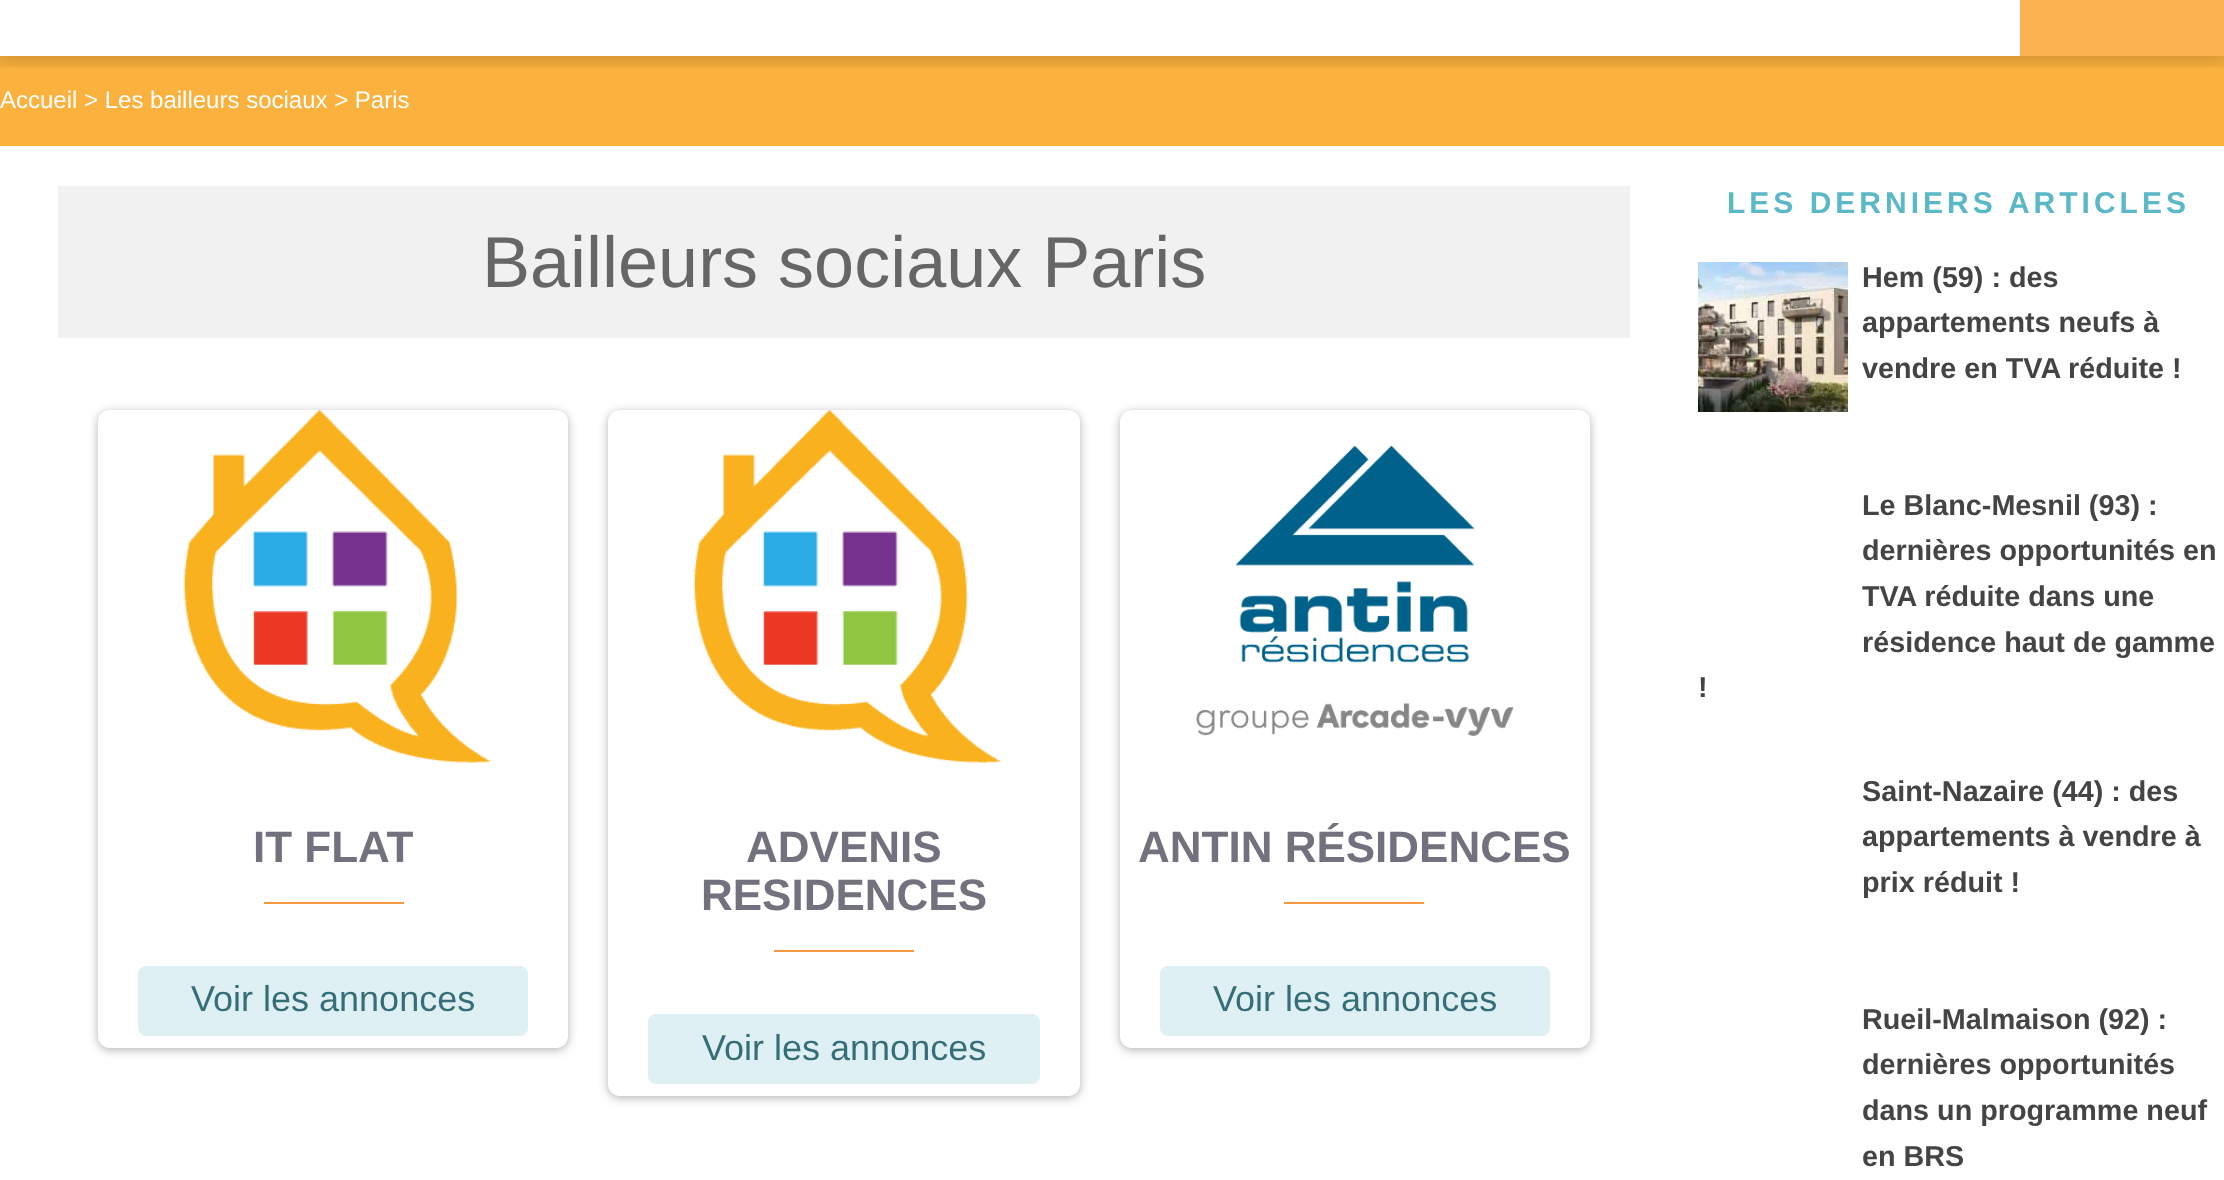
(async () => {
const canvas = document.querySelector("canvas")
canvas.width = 2224
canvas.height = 1180
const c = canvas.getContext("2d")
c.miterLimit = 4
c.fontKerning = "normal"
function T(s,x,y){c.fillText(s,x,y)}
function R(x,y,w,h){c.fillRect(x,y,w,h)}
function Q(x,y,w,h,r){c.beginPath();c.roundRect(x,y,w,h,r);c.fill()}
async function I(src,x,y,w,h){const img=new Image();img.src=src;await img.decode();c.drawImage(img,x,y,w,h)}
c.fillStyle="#fff"
R(0,0,2224,1180)
c.fillStyle="#fab13d"
R(0,56,2224,90)
c.save()
c.beginPath()
c.rect(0,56,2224,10)
c.clip()
c.fillStyle="#0000000f"
c.filter="blur(4px)"
c.beginPath()
c.rect(-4,-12,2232,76)
c.fill()
c.filter="none"
c.restore()
c.save()
c.beginPath()
c.rect(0,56,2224,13)
c.clip()
c.fillStyle="#00000014"
c.filter="blur(8px)"
c.beginPath()
c.rect(0,-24,2224,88)
c.fill()
c.filter="none"
c.restore()
c.fillStyle="#fbb14f"
R(2020,0,204,56)
c.font="24px Liberation Sans"
c.fillStyle="#fff"
T("Accueil > Les bailleurs sociaux > Paris",0,108)
c.fillStyle="#f1f1f1"
R(58,186,1572,152)
c.font="72px Liberation Sans"
c.fillStyle="#666"
T("Bailleurs sociaux Paris",482,287)
c.fillStyle="#0000004d"
c.filter="blur(5px)"
c.beginPath()
c.roundRect(98,412,470,638,12)
c.fill()
c.filter="none"
c.fillStyle="#fff"
Q(98,410,470,638,12)
await I("1.png",184,410,307,353)
c.font="bold 44px Liberation Sans"
c.fillStyle="#72727f"
T("IT FLAT",253,862)
c.fillStyle="#f69741"
R(264,902,140,2)
c.fillStyle="#def0f3"
Q(138,966,390,70,8)
c.font="36px Liberation Sans"
c.fillStyle="#366e77"
T("Voir les annonces",191,1011)
c.fillStyle="#0000004d"
c.filter="blur(5px)"
c.beginPath()
c.roundRect(608,412,472,686,12)
c.fill()
c.filter="none"
c.fillStyle="#fff"
Q(608,410,472,686,12)
await I("1.png",694,410,307,353)
c.font="bold 44px Liberation Sans"
c.fillStyle="#72727f"
T("ADVENIS",746,862)
T("RESIDENCES",701,910)
c.fillStyle="#f69741"
R(774,950,140,2)
c.fillStyle="#def0f3"
Q(648,1014,392,70,8)
c.font="36px Liberation Sans"
c.fillStyle="#366e77"
T("Voir les annonces",702,1060)
c.fillStyle="#0000004d"
c.filter="blur(5px)"
c.beginPath()
c.roundRect(1120,412,470,638,12)
c.fill()
c.filter="none"
c.fillStyle="#fff"
Q(1120,410,470,638,12)
await I("2.png",1196,445,318,292)
c.font="bold 44px Liberation Sans"
c.fillStyle="#72727f"
T("ANTIN RÉSIDENCES",1138,862)
c.fillStyle="#f69741"
R(1284,902,140,2)
c.fillStyle="#def0f3"
Q(1160,966,390,70,8)
c.font="36px Liberation Sans"
c.fillStyle="#366e77"
T("Voir les annonces",1213,1011)
c.letterSpacing="4px"
c.font="bold 30px Liberation Sans"
c.fillStyle="#5bb8c7"
T("LES DERNIERS ARTICLES",1727,213)
await I("3.png",1698,262,150,150)
c.letterSpacing="0px"
c.font="bold 28.75px Liberation Sans"
c.fillStyle="#444"
T("Hem (59) : des",1862,287)
T("appartements neufs à",1862,332)
T("vendre en TVA réduite !",1862,378)
T("Le Blanc-Mesnil (93) :",1862,515)
T("dernières opportunités en",1862,560)
T("TVA réduite dans une",1862,606)
T("résidence haut de gamme",1862,652)
T("!",1698,697)
T("Saint-Nazaire (44) : des",1862,801)
T("appartements à vendre à",1862,846)
T("prix réduit !",1862,892)
T("Rueil-Malmaison (92) :",1862,1029)
T("dernières opportunités",1862,1074)
T("dans un programme neuf",1862,1120)
T("en BRS",1862,1166)
})()
